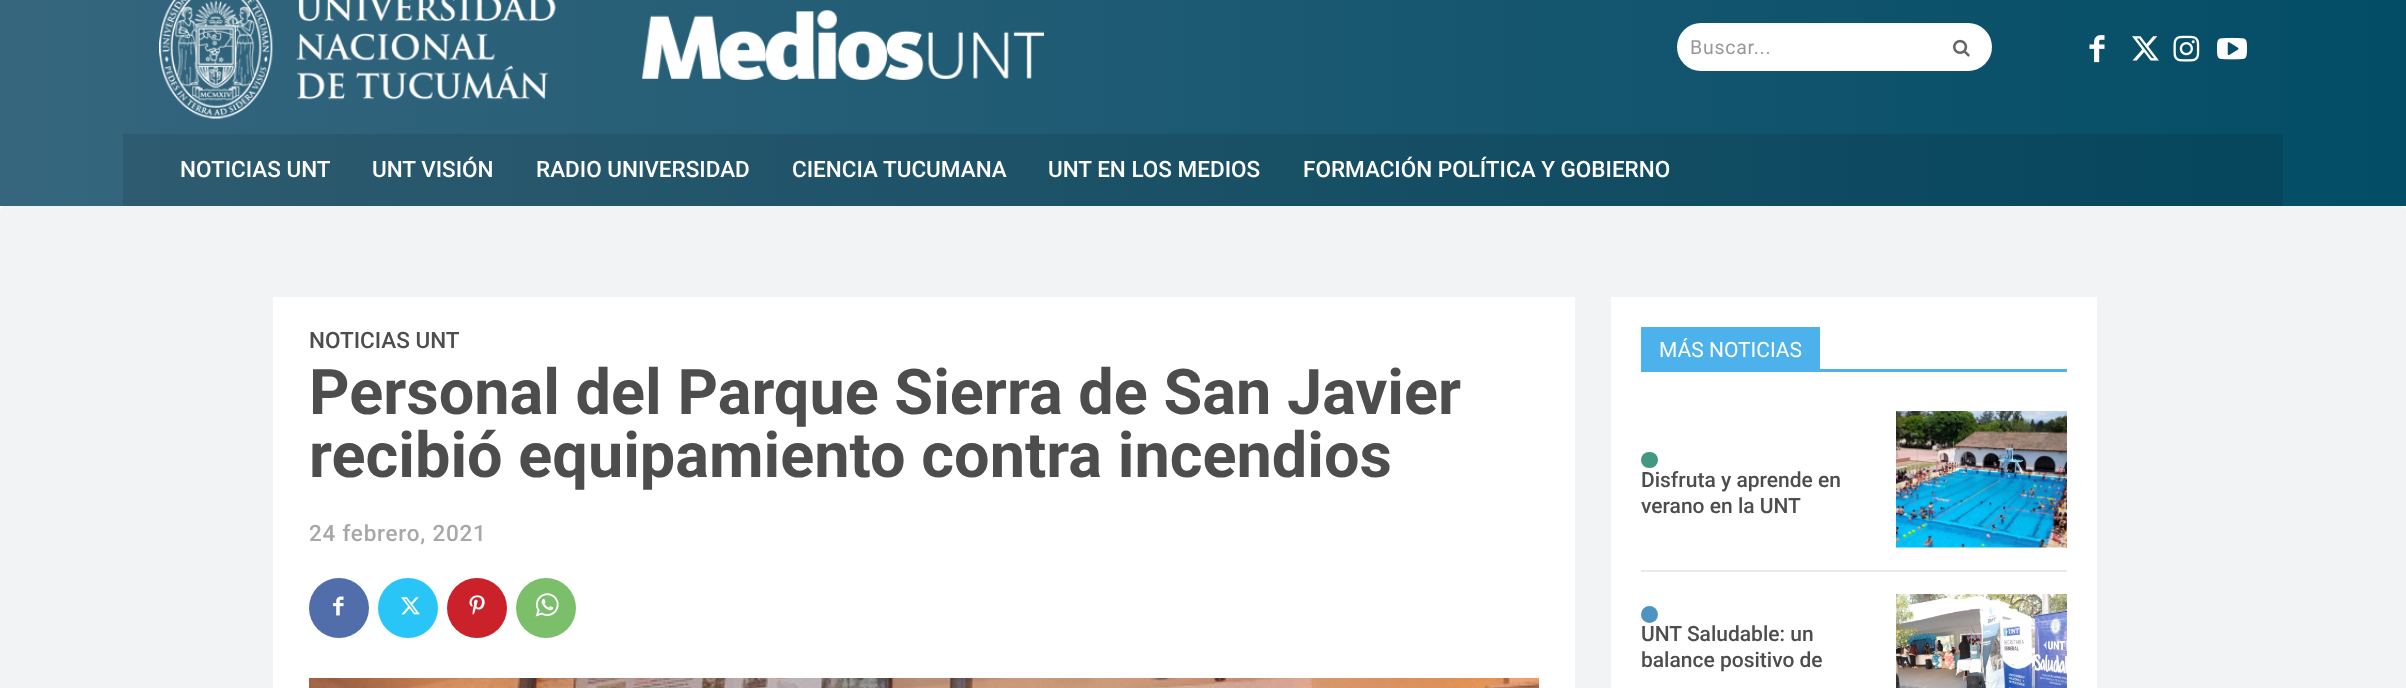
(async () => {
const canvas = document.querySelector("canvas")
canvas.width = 2406
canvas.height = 688
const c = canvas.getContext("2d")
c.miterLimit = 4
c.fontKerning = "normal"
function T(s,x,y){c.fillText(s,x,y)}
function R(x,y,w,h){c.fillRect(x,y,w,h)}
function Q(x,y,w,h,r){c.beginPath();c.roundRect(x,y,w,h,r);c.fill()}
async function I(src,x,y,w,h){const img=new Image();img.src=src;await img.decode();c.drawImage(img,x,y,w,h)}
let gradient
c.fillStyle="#fff"
R(0,0,2406,688)
gradient = c.createLinearGradient(0,83,2406,83)
gradient.addColorStop(0,"#35667e")
gradient.addColorStop(1,"#034d66")
c.fillStyle = gradient
R(0,0,2406,206)
gradient = c.createLinearGradient(0,83,2406,83)
gradient.addColorStop(0,"#305c71")
gradient.addColorStop(1,"#03455c")
c.fillStyle = gradient
R(123,134,2160,72)
await I("1.png",159,0,885,119)
c.fillStyle="#fff"
Q(1677,23,315,48,24)
c.letterSpacing="0.75px"
c.font="19.5px Roboto"
c.fillStyle="#999"
T("Buscar...",1690,54)
await I("2.png",1953,39,17,18)
await I("3.png",2089,35,16,28)
await I("4.png",2132,36,27,25)
await I("5.png",2173,35,27,27)
await I("6.png",2217,37,30,23)
c.letterSpacing="0px"
c.font="500 22.5px Roboto"
c.fillStyle="#fff"
T("NOTICIAS UNT",180,177)
T("UNT VISIÓN",372,177)
T("RADIO UNIVERSIDAD",536,177)
T("CIENCIA TUCUMANA",792,177)
T("UNT EN LOS MEDIOS",1048,177)
T("FORMACIÓN POLÍTICA Y GOBIERNO",1303,177)
c.fillStyle="#f2f3f5"
Q(0,206,2406,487,5)
c.fillStyle="#fff"
R(273,297,1302,391)
c.fillStyle="#4d4d4d"
T("NOTICIAS UNT",309,348)
c.font="bold 63px Roboto"
T("Personal del Parque Sierra de San Javier",309,414)
T("recibió equipamiento contra incendios",309,477)
c.letterSpacing="0.75px"
c.font="500 22.5px Roboto"
c.fillStyle="#a8a8a8"
T("24 febrero, 2021",309,541)
c.fillStyle="#516eab"
c.beginPath()
c.arc(339,608,30,0,7)
c.fill()
await I("7.png",333,596,11,20)
c.fillStyle="#29c5f6"
c.beginPath()
c.arc(408,608,30,0,7)
c.fill()
await I("8.png",401,597,19,18)
c.fillStyle="#ca212a"
c.beginPath()
c.arc(477,608,30,0,7)
c.fill()
await I("9.png",469,595,16,20)
c.fillStyle="#7bbf6a"
c.beginPath()
c.arc(546,608,30,0,7)
c.fill()
await I("10.png",535,593,24,24)
await I("11.png",309,678,1230,10)
c.fillStyle="#fff"
R(1611,297,486,391)
c.fillStyle="#4db2ec"
R(1641,369,426,3)
R(1641,327,179,42)
c.letterSpacing="0px"
c.font="21px Roboto"
c.fillStyle="#fff"
T("MÁS NOTICIAS",1659,357)
c.fillStyle="#eaeaea"
R(1641,570,426,2)
c.fillStyle="#449883"
Q(1641,452,17,16,8)
c.font="500 21px Roboto"
c.fillStyle="#4d4d4d"
T("Disfruta y aprende en",1641,487)
T("verano en la UNT",1641,513)
await I("12.png",1896,411,171,137)
c.fillStyle="#4e94c2"
c.beginPath()
c.arc(1649.5,614.5,8.5,0,7)
c.fill()
c.fillStyle="#4d4d4d"
T("UNT Saludable: un",1641,641)
T("balance positivo de",1641,667)
await I("13.png",1896,594,171,94)
})()
